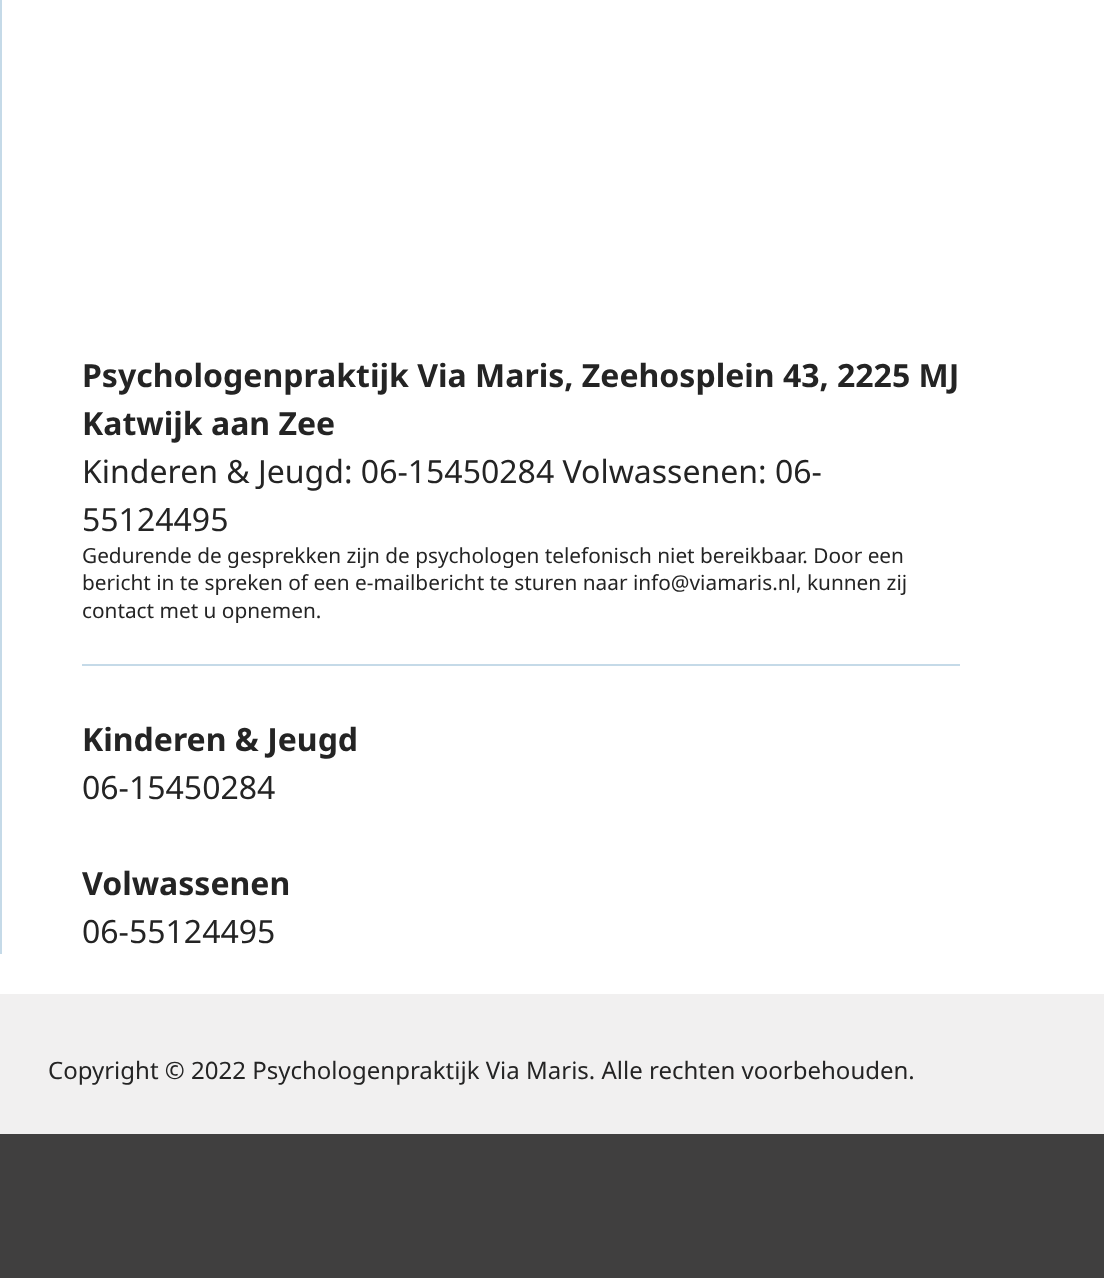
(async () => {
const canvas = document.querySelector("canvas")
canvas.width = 1104
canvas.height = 1278
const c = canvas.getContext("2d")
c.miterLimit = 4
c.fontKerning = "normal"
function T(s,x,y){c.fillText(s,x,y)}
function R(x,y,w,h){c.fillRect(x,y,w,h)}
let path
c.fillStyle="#fff"
R(0,0,1104,1278)
c.fillStyle="#c5dae8"
path = new Path2D("M0 954v-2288l2 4v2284z")
c.fill(path)
c.font="bold 32px Noto Sans"
c.fillStyle="#242424"
T("Psychologenpraktijk Via Maris, Zeehosplein 43, 2225 MJ",82,387)
T("Katwijk aan Zee",82,435)
c.font="32px Noto Sans"
T("Kinderen & Jeugd: 06-15450284 Volwassenen: 06-",82,483)
T("55124495",82,531)
c.font="20.8px Noto Sans"
T("Gedurende de gesprekken zijn de psychologen telefonisch niet bereikbaar. Door een",82,563)
T("bericht in te spreken of een e-mailbericht te sturen naar info@viamaris.nl, kunnen zij",82,590)
T("contact met u opnemen.",82,618)
c.fillStyle="#c5dae8"
R(82,664,878,2)
c.font="bold 32px Noto Sans"
c.fillStyle="#242424"
T("Kinderen & Jeugd",82,751)
c.font="32px Noto Sans"
T("06-15450284",82,799)
c.font="bold 32px Noto Sans"
T("Volwassenen",82,895)
c.font="32px Noto Sans"
T("06-55124495",82,943)
c.fillStyle="#f1f0f0"
R(0,994,1104,140)
c.font="24px Noto Sans"
c.fillStyle="#242424"
T("Copyright © 2022 Psychologenpraktijk Via Maris. Alle rechten voorbehouden.",48,1079)
c.fillStyle="#403f3f"
R(0,1134,1104,144)
})()
